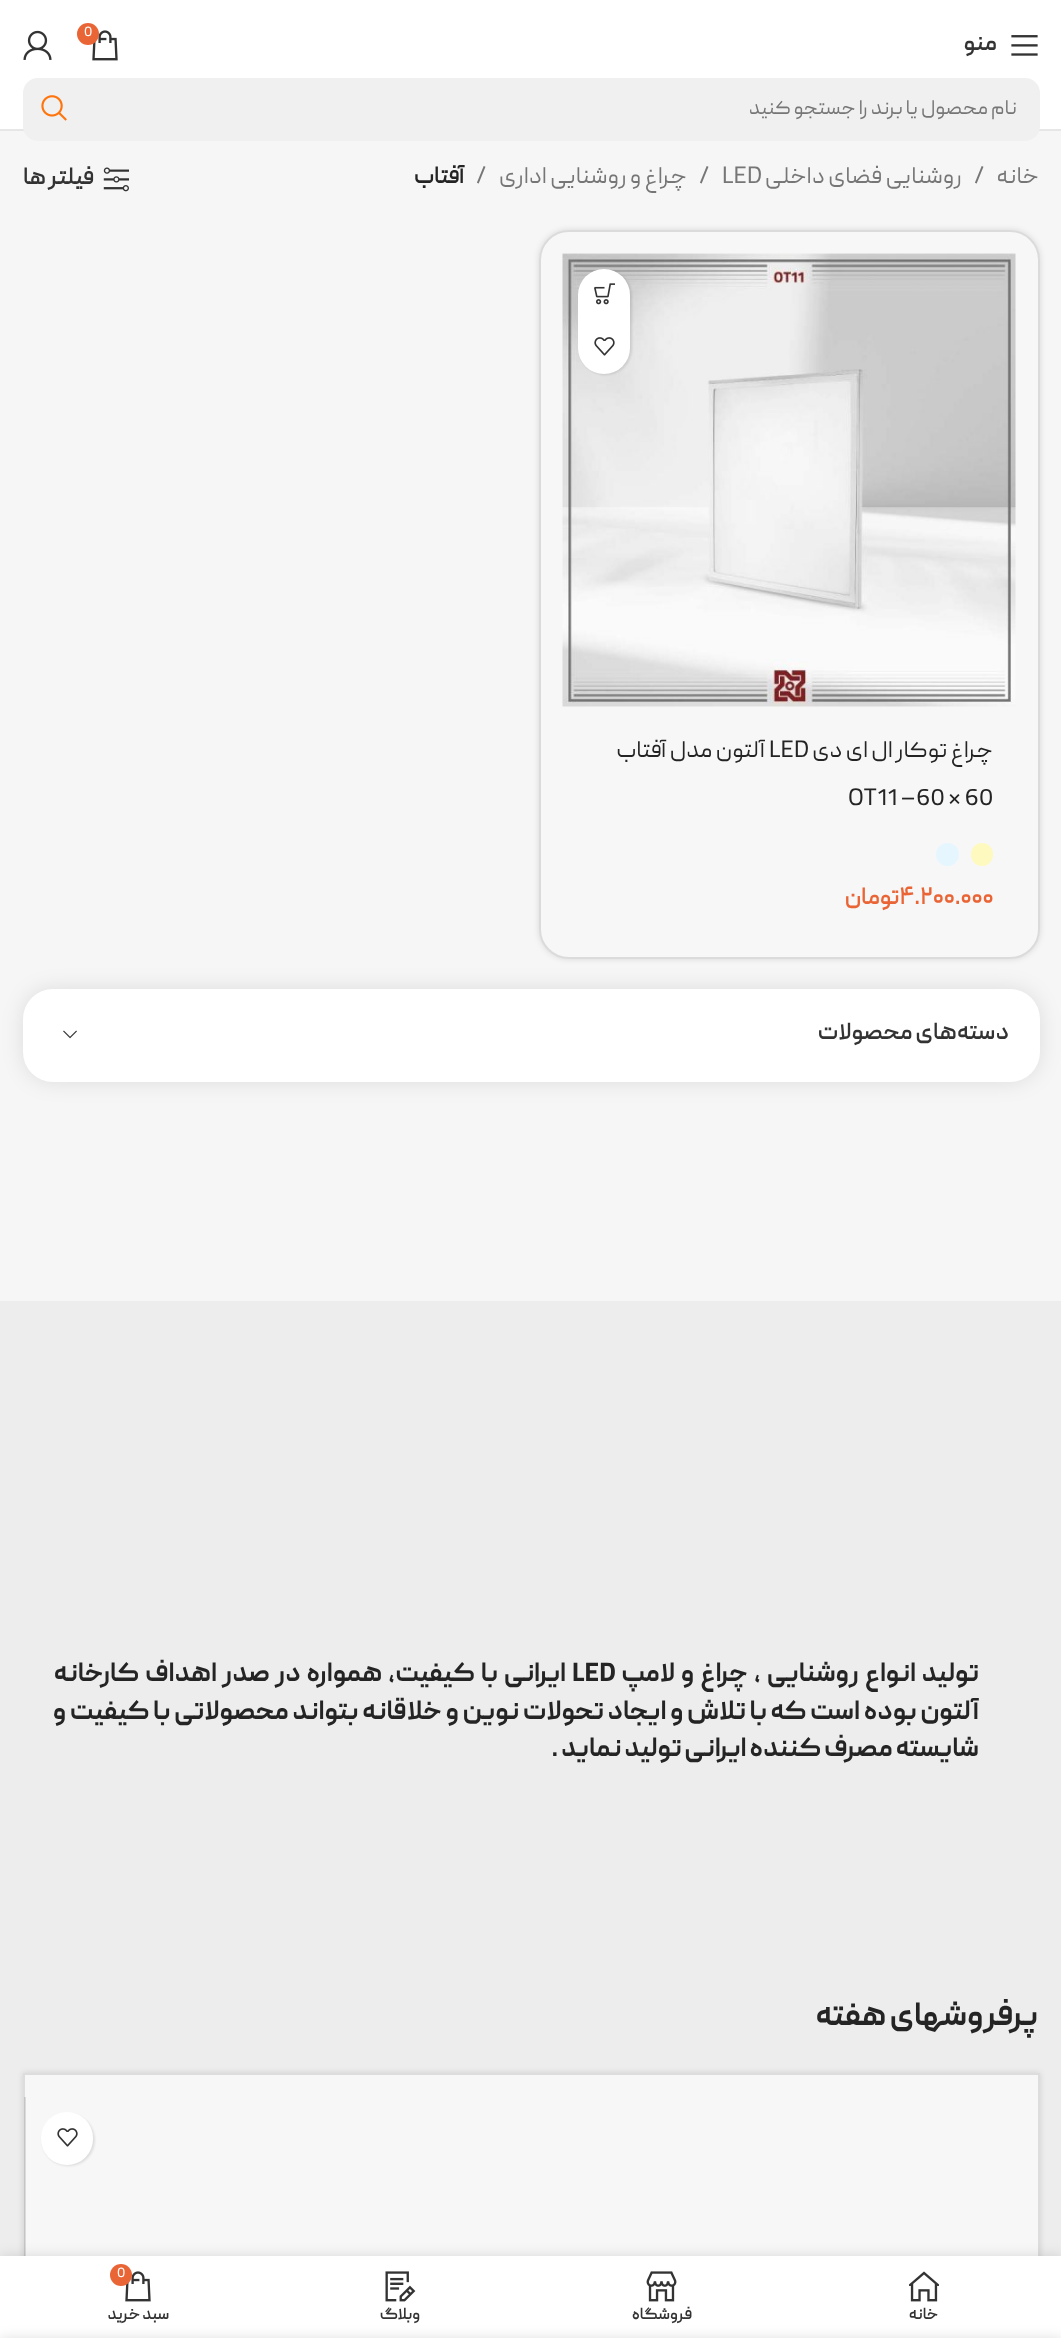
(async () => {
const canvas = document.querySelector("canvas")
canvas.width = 1061
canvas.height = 2338
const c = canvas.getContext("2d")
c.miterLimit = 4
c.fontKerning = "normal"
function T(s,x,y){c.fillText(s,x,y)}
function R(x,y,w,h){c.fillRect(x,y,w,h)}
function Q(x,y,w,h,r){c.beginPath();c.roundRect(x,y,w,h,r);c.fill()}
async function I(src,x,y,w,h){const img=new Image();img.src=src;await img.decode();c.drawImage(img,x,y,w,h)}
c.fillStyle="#fff"
R(0,0,1061,2338)
await I("1.png",92,30,26,31)
c.fillStyle="#ea6536"
c.beginPath()
c.arc(88,34,11,0,7)
c.fill()
c.font="14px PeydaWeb"
c.fillStyle="#fff"
T("0",84,36)
await I("2.png",23,30,29,30)
await I("3.png",1011,35,27,21)
c.direction="rtl"
c.font="600 24px PeydaWeb"
c.fillStyle="#333"
T("منو",997,50)
c.fillStyle="#e6e6e6"
R(0,129,1061,2)
c.fillStyle="#f6f6f6"
R(0,131,1061,1170)
c.fillStyle="#f0f0f1"
Q(23,78,1017,63,15)
c.font="21px PeydaWeb"
c.fillStyle="#767676"
T("نام محصول یا برند را جستجو کنید",1017,114)
await I("4.png",41,95,26,26)
c.font="24px PeydaWeb"
T("خانه",1039,183)
c.direction="ltr"
T("/",974,183)
c.direction="rtl"
T("روشنایی فضای داخلی",962,183)
c.direction="ltr"
T("LED",722,183)
T("/",699,183)
c.direction="rtl"
T("چراغ و روشنایی اداری",687,183)
c.direction="ltr"
T("/",476,183)
c.direction="rtl"
c.font="bold 24px PeydaWeb"
c.fillStyle="#242424"
T("آفتاب",464,183)
await I("5.png",103,167,26,25)
c.fillStyle="#333"
T("فیلتر ها",94,184)
c.fillStyle="#0000001f"
c.filter="blur(3px)"
c.beginPath()
c.roundRect(539,230,501,729,30)
c.fill()
c.filter="none"
c.fillStyle="#0000001a"
c.filter="blur(10.5px)"
c.beginPath()
c.roundRect(23,989,1017,93,30)
c.fill()
c.filter="none"
c.fillStyle="#f7f7f7"
Q(539,230,501,729,30)
c.beginPath()
c.roundRect(540,231,499,727,29)
c.strokeStyle="#0000001c"
c.lineWidth=2
c.stroke()
await I("6.png",562,253,454,454)
c.fillStyle="#0000001a"
c.filter="blur(1px)"
c.beginPath()
c.roundRect(579,270,53,105,26.5)
c.fill()
c.filter="none"
c.fillStyle="#fff"
Q(578,269,52,105,26)
await I("7.png",594,283,21,22)
await I("8.png",594,337,21,19)
c.font="24px PeydaWeb"
c.fillStyle="#242424"
T("چراغ توکار ال ای دی",993,757)
c.direction="ltr"
T("LED",769,757)
c.direction="rtl"
T("آلتون مدل آفتاب",765,757)
c.direction="ltr"
T("OT11 –60 * 60",848,805)
c.fillStyle="#fef9bf"
Q(971,843,22,23,11)
c.fillStyle="#e5f6ff"
c.beginPath()
c.arc(947.5,854.5,11.5,0,7)
c.fill()
c.font="bold 24px PeydaWeb"
c.fillStyle="#ea6536"
T("۴.۲۰۰.۰۰۰",899,904)
c.direction="rtl"
T("تومان",899,904)
c.fillStyle="#fff"
Q(23,989,1017,93,30)
c.font="600 24px PeydaWeb"
c.fillStyle="#333"
T("دسته‌های محصولات",1009,1039)
await I("9.png",63,1030,14,9)
c.fillStyle="#ededed"
R(0,1301,1061,955)
c.wordSpacing="3px"
c.font="bold 27px 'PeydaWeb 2'"
c.fillStyle="#242424"
T("تولید انواع روشنایی ، چراغ و لامپ",979,1681)
c.wordSpacing="0px"
c.direction="ltr"
T("LED",572,1681)
c.wordSpacing="3px"
c.direction="rtl"
T("ایرانی با کیفیت، همواره در صدر اهداف کارخانه",566,1681)
c.wordSpacing="0.8px"
T("آلتون بوده است که با تلاش و ایجاد تحولات نوین و خلاقانه بتواند محصولاتی با کیفیت و",979,1719)
c.wordSpacing="0px"
T("شایسته مصرف کننده ایرانی تولید نماید .",979,1756)
c.font="bold 33px 'PeydaWeb 2'"
T("پرفروشهای هفته",1039,2025)
c.fillStyle="#0000001f"
c.filter="blur(3px)"
c.beginPath()
c.rect(23,2073,1017,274)
c.fill()
c.filter="none"
c.fillStyle="#f7f7f7"
R(25,2075,1013,181)
c.strokeStyle="#ddd"
c.strokeRect(24,2074,1015,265)
c.fillStyle="#0000001c"
R(24,2097,2,159)
c.fillStyle="#0000001a"
c.filter="blur(1px)"
c.beginPath()
c.roundRect(42,2114,53,52,26)
c.fill()
c.filter="none"
c.fillStyle="#fff"
Q(41,2112,52,53,26)
await I("8.png",57,2128,21,19)
c.fillStyle="#0000001f"
c.filter="blur(7px)"
c.beginPath()
c.rect(0,2256,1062,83)
c.fill()
c.filter="none"
c.fillStyle="#fff"
R(0,2256,1061,82)
await I("10.png",909,2271,30,31)
c.font="bold 16.5px PeydaWeb"
c.fillStyle="#333"
T("خانه",938,2319)
await I("11.png",646,2271,31,31)
T("فروشگاه",692,2319)
await I("12.png",385,2271,31,31)
T("وبلاگ",420,2319)
await I("1.png",125,2271,26,31)
c.fillStyle="#ea6536"
c.beginPath()
c.arc(121,2275,11,0,7)
c.fill()
c.direction="ltr"
c.font="14px PeydaWeb"
c.fillStyle="#fff"
T("0",117,2277)
c.direction="rtl"
c.font="bold 16.5px PeydaWeb"
c.fillStyle="#333"
T("سبد خرید",169,2319)
c.fillStyle="#00000024"
c.filter="blur(7px)"
c.beginPath()
c.rect(0,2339,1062,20)
c.fill()
c.filter="none"
})()
